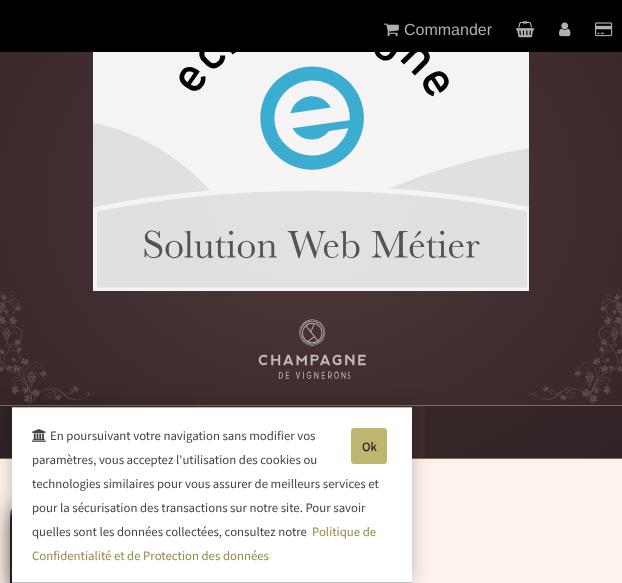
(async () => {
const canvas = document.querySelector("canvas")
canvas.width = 622
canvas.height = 583
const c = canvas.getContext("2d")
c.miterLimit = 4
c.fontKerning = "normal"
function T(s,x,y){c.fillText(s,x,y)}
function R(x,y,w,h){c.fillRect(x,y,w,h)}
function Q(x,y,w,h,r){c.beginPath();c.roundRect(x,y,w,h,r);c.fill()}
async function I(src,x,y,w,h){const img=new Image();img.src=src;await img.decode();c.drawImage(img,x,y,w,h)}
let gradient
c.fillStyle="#fff"
R(0,0,622,583)
c.fillStyle="#000"
R(0,0,622,52)
await I("1.png",384,23,15,14)
c.font="16px Liberation Sans"
c.fillStyle="#aeaeae"
T("Commander",404,35)
await I("2.png",516,21,19,17)
await I("3.png",559,22,12,15)
await I("4.png",595,22,18,15)
gradient = c.createRadialGradient(311,237.93,0,311,237.93,440)
gradient.addColorStop(.1,"#4d3638")
gradient.addColorStop(1,"#352527")
c.fillStyle = gradient
c.beginPath()
c.rect(0,52,622,353)
c.save()
c.clip()
c.scale(1,368 / 440)
c.fillRect(0,0,622,698)
c.restore()
gradient = c.createRadialGradient(311,237.93,0,311,237.93,440)
gradient.addColorStop(.1,"#3b2a2c")
gradient.addColorStop(1,"#312325")
c.fillStyle = gradient
c.beginPath()
c.rect(0,406,622,52)
c.save()
c.clip()
c.scale(1,368 / 440)
c.fillRect(0,0,622,698)
c.restore()
gradient = c.createRadialGradient(311,237.93,0,311,237.93,440)
gradient.addColorStop(.1,"#8b6f54")
gradient.addColorStop(1,"#876c51")
c.fillStyle = gradient
c.beginPath()
c.rect(0,458,622,1)
c.save()
c.clip()
c.scale(1,368 / 440)
c.fillRect(0,0,622,698)
c.restore()
c.beginPath()
c.rect(0,405,622,1)
c.save()
c.clip()
c.scale(1,368 / 440)
c.fillRect(0,0,622,698)
c.restore()
await I("5.png",0,290,622,115)
await I("6.png",93,52,436,239)
await I("7.png",258,319,108,60)
c.fillStyle="#3f2c2e"
R(197,406,228,52)
c.fillStyle="#fff4ed"
R(0,459,622,124)
c.fillStyle="#00000080"
c.filter="blur(10px)"
c.beginPath()
c.roundRect(10,509,90,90,10)
c.fill()
c.filter="none"
c.fillStyle="#444"
Q(10,509,90,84,10)
await I("9.png",10,509,2,74)
c.fillStyle="#00000040"
c.filter="blur(10px)"
c.beginPath()
c.rect(12,407,400,176)
c.fill()
c.filter="none"
c.fillStyle="#fff"
R(12,408,400,174)
c.fillStyle="#bbb"
R(12,407,400,1)
R(12,582,400,1)
await I("8.png",32,429,14,13)
c.font="12.8px Source Sans Pro"
c.fillStyle="#444"
T("En poursuivant votre navigation sans modifier vos",50,440)
c.fillStyle="#bfb470"
c.beginPath()
c.roundRect(351.5,428.5,35,35,2.5)
c.fill()
c.strokeStyle="#bfb470"
c.stroke()
c.fillStyle="#000"
T("Ok",362,451)
c.fillStyle="#444"
T("paramètres, vous acceptez l'utilisation des cookies ou",32,464)
T("technologies similaires pour vous assurer de meilleurs services et",32,488)
T("pour la sécurisation des transactions sur notre site. Pour savoir",32,512)
T("quelles sont les données collectées, consultez notre",32,536)
c.fillStyle="#958a46"
T("Politique de",312,536)
T("Confidentialité et de Protection des données",32,560)
})()
